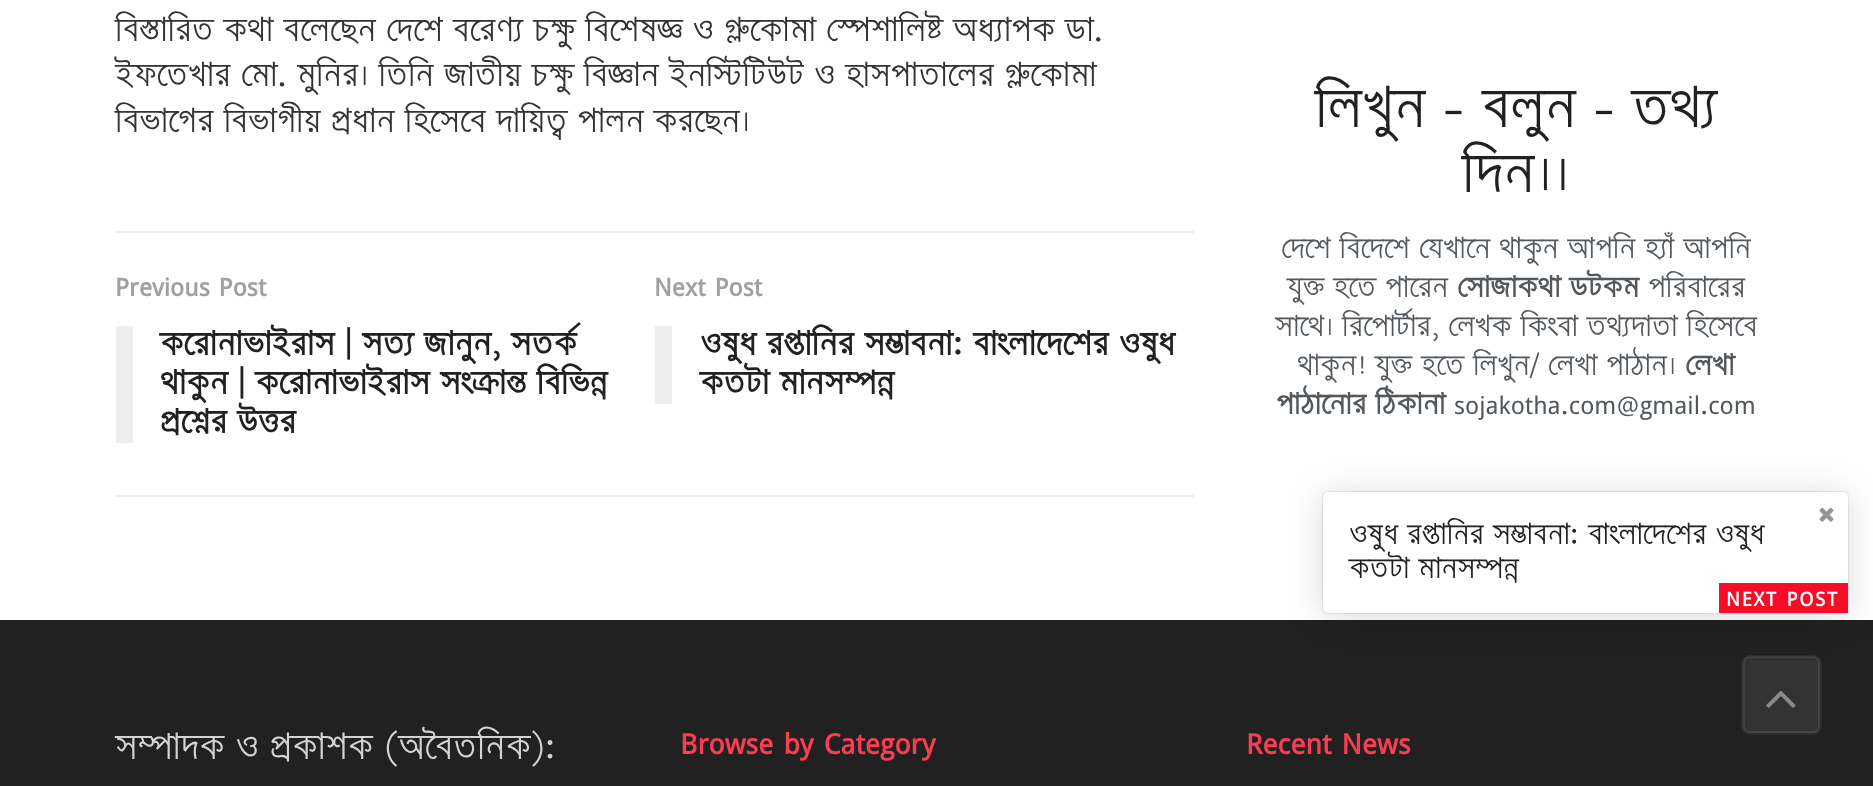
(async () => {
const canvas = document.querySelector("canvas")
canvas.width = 1873
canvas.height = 786
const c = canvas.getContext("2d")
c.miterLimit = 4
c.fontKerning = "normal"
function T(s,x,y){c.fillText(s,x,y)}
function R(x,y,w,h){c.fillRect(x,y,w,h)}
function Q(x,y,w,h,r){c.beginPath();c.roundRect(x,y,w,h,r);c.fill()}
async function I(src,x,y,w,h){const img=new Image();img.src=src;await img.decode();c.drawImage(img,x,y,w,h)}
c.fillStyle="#fff"
R(0,0,1873,786)
c.font="28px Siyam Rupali"
c.fillStyle="#333"
T("বিস্তারিত কথা বলেছেন দেশে বরেণ্য চক্ষু বিশেষজ্ঞ ও গ্লুকোমা স্পেশালিষ্ট অধ্যাপক ডা.",115,41)
T("ইফতেখার মো. মুনির। তিনি জাতীয় চক্ষু বিজ্ঞান ইনস্টিটিউট ও হাসপাতালের গ্লুকোমা",115,86)
T("বিভাগের বিভাগীয় প্রধান হিসেবে দায়িত্ব পালন করছেন।",115,132)
c.fillStyle="#eee"
R(116,231,1078,2)
R(116,495,1078,2)
c.font="bold 24.5px Siyam Rupali"
c.fillStyle="#a0a0a0"
T("Previous Post",115,296)
c.fillStyle="#eee"
R(116,326,17,117)
c.font="bold 28px Siyam Rupali"
c.fillStyle="#212121"
T("করোনাভাইরাস | সত্য জানুন, সতর্ক",160,355)
T("থাকুন | করোনাভাইরাস সংক্রান্ত বিভিন্ন",160,394)
T("প্রশ্নের উত্তর",160,433)
c.font="bold 24.5px Siyam Rupali"
c.fillStyle="#a0a0a0"
T("Next Post",654,296)
c.fillStyle="#eee"
R(655,326,17,78)
c.font="bold 28px Siyam Rupali"
c.fillStyle="#212121"
T("ওষুধ রপ্তানির সম্ভাবনা: বাংলাদেশের ওষুধ",700,355)
T("কতটা মানসম্পন্ন",700,394)
R(0,620,1873,166)
c.fillStyle="#00000026"
c.filter="blur(17.5px)"
c.beginPath()
c.roundRect(1323,495,525,121,5)
c.fill()
c.filter="none"
c.fillStyle="#00000033"
c.filter="blur(1px)"
c.beginPath()
c.roundRect(1323,492,525,121,5)
c.fill()
c.filter="none"
c.fillStyle="#fff"
Q(1323,492,525,121,5)
await I("1.png",1819,507,15,15)
c.font="24.5px Siyam Rupali"
c.fillStyle="#212121"
T("ওষুধ রপ্তানির সম্ভাবনা: বাংলাদেশের ওষুধ",1349,544)
T("কতটা মানসম্পন্ন",1349,578)
c.fillStyle="#f70d28"
R(1719,583,129,30)
c.letterSpacing="1.75px"
c.font="bold 19.25px Siyam Rupali"
c.fillStyle="#fff"
T("NEXT POST",1726,606)
c.letterSpacing="0px"
c.font="47.75px Siyam Rupali"
c.fillStyle="#212121"
T("লিখুন - বলুন - তথ্য",1315,127)
T("দিন।।",1462,192)
c.font="24.5px Siyam Rupali"
c.fillStyle="#53585c"
T("দেশে বিদেশে যেখানে থাকুন আপনি হ্যাঁ আপনি",1281,258)
T("যুক্ত হতে পারেন",1287,297)
c.font="bold 24.5px Siyam Rupali"
T("সোজাকথা ডটকম",1457,297)
c.font="24.5px Siyam Rupali"
T("পরিবারের",1648,297)
T("সাথে। রিপোর্টার, লেখক কিংবা তথ্যদাতা হিসেবে",1275,336)
T("থাকুন! যুক্ত হতে লিখুন/ লেখা পাঠান।",1297,375)
c.font="bold 24.5px Siyam Rupali"
T("লেখা",1685,375)
T("পাঠানোর ঠিকানা",1276,414)
c.font="24.5px Siyam Rupali"
T("sojakotha.com@gmail.com",1454,414)
c.fillStyle="#333"
Q(1741,655,81,80,9)
c.beginPath()
c.roundRect(1744,657,75,75,6)
c.strokeStyle="#434343"
c.lineWidth=2
c.stroke()
c.beginPath()
c.roundRect(1742,656,79,78,8)
c.strokeStyle="#0707071c"
c.stroke()
await I("2.png",1766,690,30,18)
c.font="30.6px Siyam Rupali"
c.fillStyle="#d3d3d3"
T("সম্পাদক ও প্রকাশক (অবৈতনিক):",115,759)
c.font="bold 28px Siyam Rupali"
c.fillStyle="#f93d53"
T("Browse by Category",680,754)
T("Recent News",1246,754)
})()
